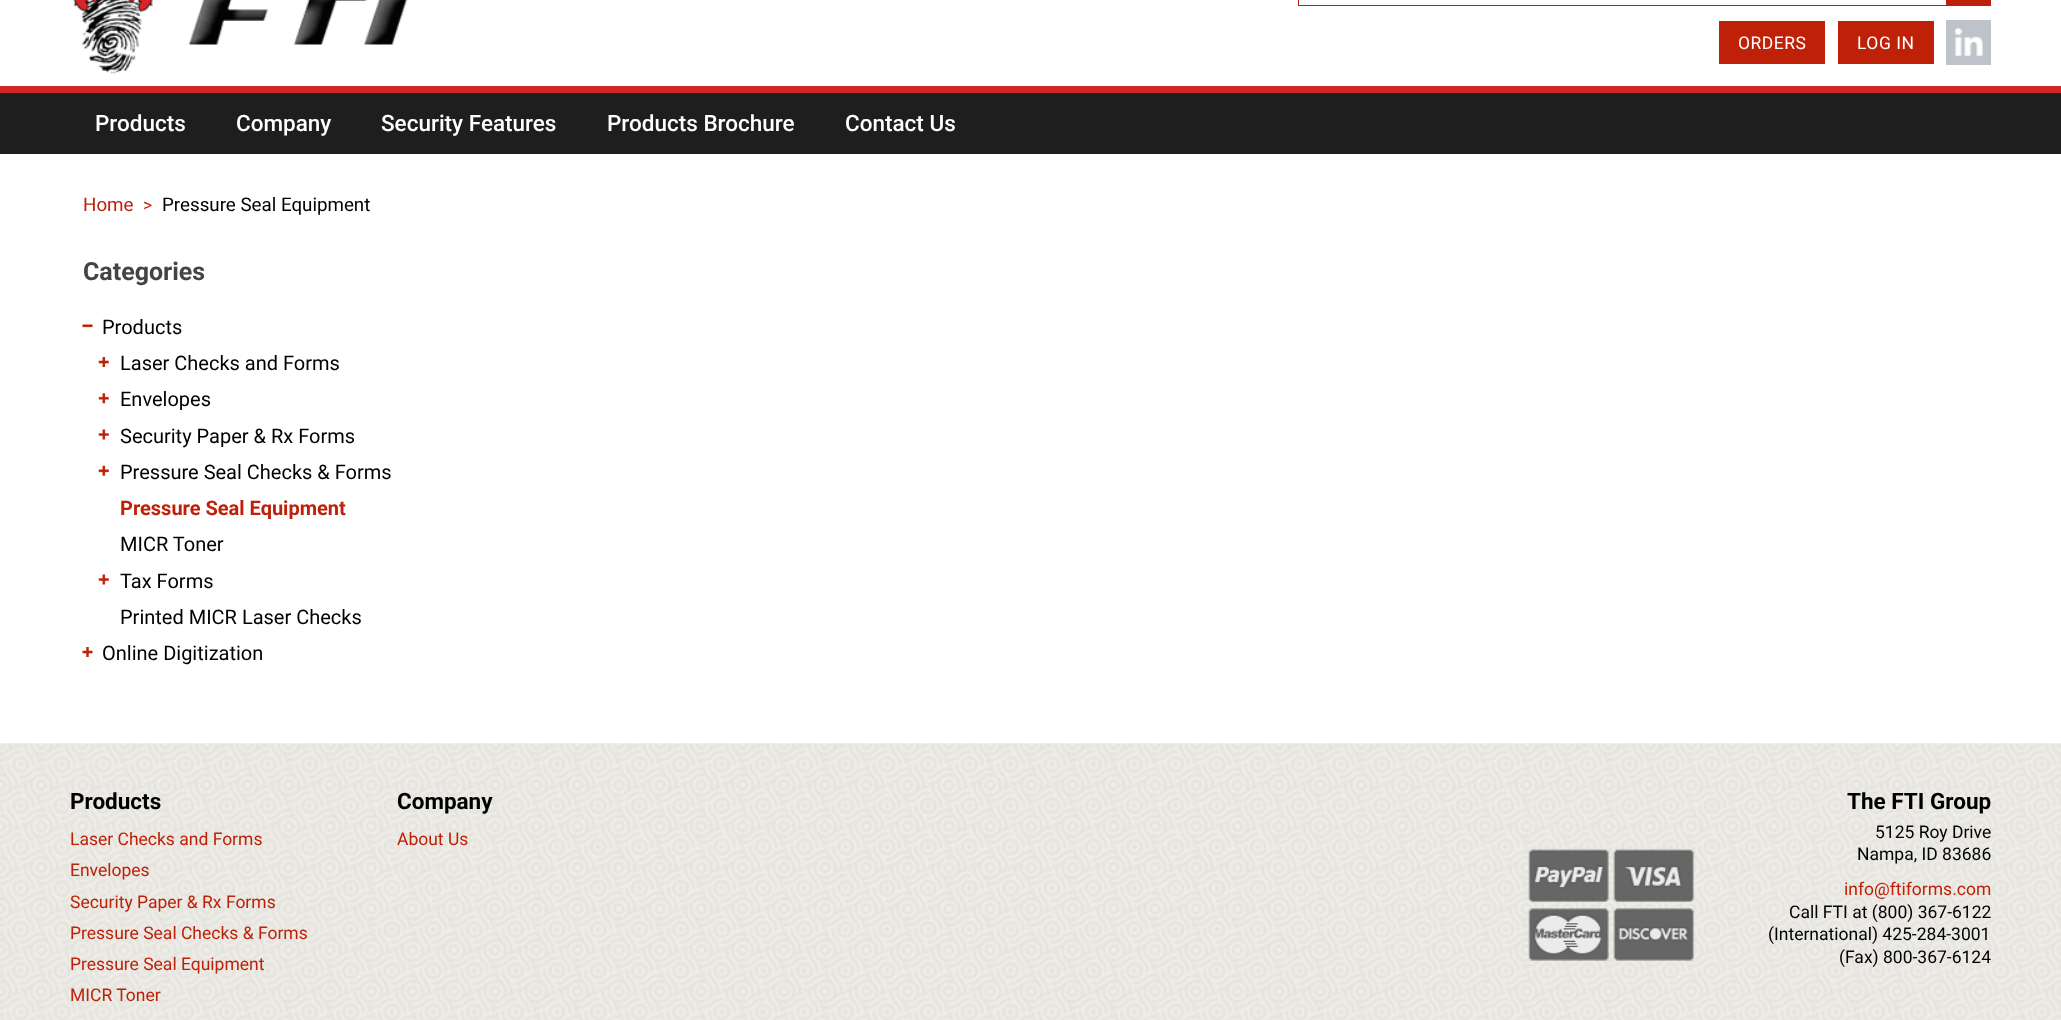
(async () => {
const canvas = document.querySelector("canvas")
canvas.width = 2061
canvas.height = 1020
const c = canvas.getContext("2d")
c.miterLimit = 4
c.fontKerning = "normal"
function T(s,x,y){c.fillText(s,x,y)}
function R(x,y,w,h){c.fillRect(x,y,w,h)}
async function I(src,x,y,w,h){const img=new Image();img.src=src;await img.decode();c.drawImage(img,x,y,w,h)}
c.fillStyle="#fff"
R(0,0,2061,1020)
await I("1.png",73,0,335,74)
c.strokeStyle="#be2107"
c.strokeRect(1298.5,-.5,649,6)
c.fillStyle="#be2107"
R(1946,0,45,6)
R(1719,21,106,43)
c.letterSpacing="0.5px"
c.font="17.5px Roboto"
c.fillStyle="#fff"
T("ORDERS",1738,49)
c.fillStyle="#be2107"
R(1838,21,96,43)
c.fillStyle="#fff"
T("LOG IN",1857,49)
c.fillStyle="#bec3c9"
R(1946,20,45,45)
await I("2.png",1955,28,28,28)
c.fillStyle="#1e1e1e"
R(0,93,2061,61)
c.fillStyle="#d22529"
R(0,86,2061,7)
c.letterSpacing="0px"
c.font="500 22.5px Roboto"
c.fillStyle="#fff"
T("Products",95,131)
T("Company",236,131)
T("Security Features",381,131)
T("Products Brochure",607,131)
T("Contact Us",845,131)
c.font="18.75px Roboto"
c.fillStyle="#be2107"
T("Home",83,211)
c.font="17.5px Roboto"
T(">",143,211)
c.font="18.75px Roboto"
c.fillStyle="#000"
T("Pressure Seal Equipment",162,211)
c.font="bold 25px Roboto"
c.fillStyle="#444"
T("Categories",83,280)
await I("3.png",82,324,11,4)
c.font="20px Roboto"
c.fillStyle="#000"
T("Products",102,334)
await I("4.png",98,357,11,10)
T("Laser Checks and Forms",120,370)
await I("5.png",98,393,11,11)
T("Envelopes",120,406)
await I("6.png",98,429,11,11)
T("Security Paper & Rx Forms",120,443)
await I("7.png",98,465,11,11)
T("Pressure Seal Checks & Forms",120,479)
c.font="bold 20px Roboto"
c.fillStyle="#be2107"
T("Pressure Seal Equipment",120,515)
c.font="20px Roboto"
c.fillStyle="#000"
T("MICR Toner",120,551)
await I("6.png",98,574,11,11)
T("Tax Forms",120,588)
T("Printed MICR Laser Checks",120,624)
await I("8.png",82,647,11,10)
T("Online Digitization",102,660)
await I("9.png",0,743,2061,277)
c.font="bold 22.5px Roboto"
T("Products",70,809)
c.font="17.5px Roboto"
c.fillStyle="#be2107"
T("Laser Checks and Forms",70,845)
T("Envelopes",70,876)
T("Security Paper & Rx Forms",70,908)
T("Pressure Seal Checks & Forms",70,939)
T("Pressure Seal Equipment",70,970)
T("MICR Toner",70,1001)
c.font="bold 22.5px Roboto"
c.fillStyle="#000"
T("Company",397,809)
c.font="17.5px Roboto"
c.fillStyle="#be2107"
T("About Us",397,845)
await I("10.png",1528,849,81,53)
await I("11.png",1613,849,81,53)
await I("12.png",1528,908,81,53)
await I("13.png",1613,908,81,53)
c.font="bold 22.5px Roboto"
c.fillStyle="#000"
T("The FTI Group",1847,809)
c.font="17.5px Roboto"
T("5125 Roy Drive",1875,838)
T("Nampa, ID 83686",1857,860)
c.fillStyle="#be2107"
T("info@ftiforms.com",1844,895)
c.fillStyle="#000"
T("Call FTI at (800) 367-6122",1789,918)
T("(International) 425-284-3001",1768,940)
T("(Fax) 800-367-6124",1839,963)
})()
